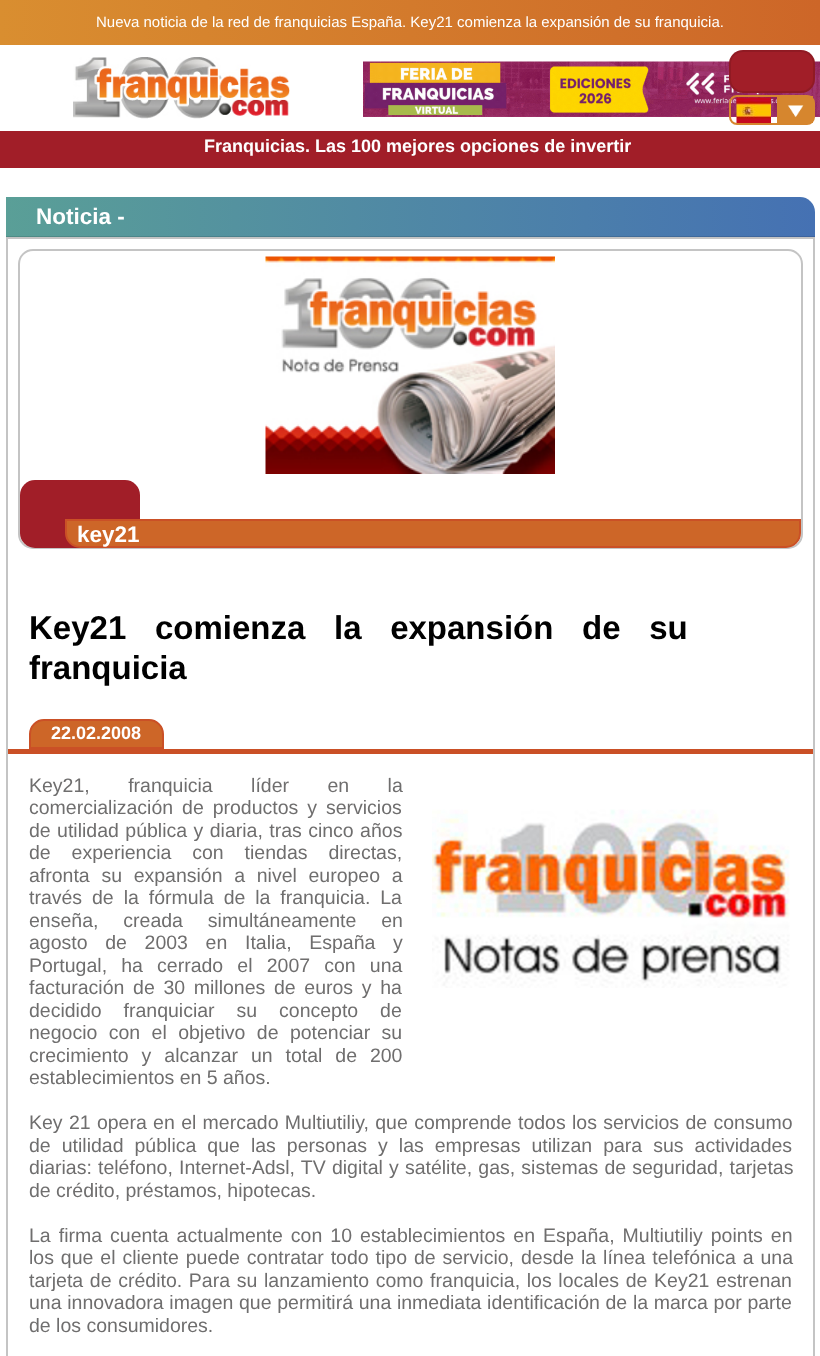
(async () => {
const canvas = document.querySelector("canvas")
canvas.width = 820
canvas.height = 1356
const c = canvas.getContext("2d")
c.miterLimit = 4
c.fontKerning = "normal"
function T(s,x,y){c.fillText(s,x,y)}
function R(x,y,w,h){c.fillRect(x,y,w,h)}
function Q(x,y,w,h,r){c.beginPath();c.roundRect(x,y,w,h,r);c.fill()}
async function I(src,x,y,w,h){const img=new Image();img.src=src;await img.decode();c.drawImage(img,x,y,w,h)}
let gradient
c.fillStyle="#fff"
R(0,0,820,1356)
gradient = c.createLinearGradient(0,23,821,22)
gradient.addColorStop(0,"#d98e30")
gradient.addColorStop(1,"#cd6628")
c.fillStyle = gradient
R(0,0,820,45)
c.font="15px Liberation Sans"
c.fillStyle="#fff"
T("Nueva noticia de la red de franquicias España. Key21 comienza la expansión de su franquicia.",96,27)
await I("1.png",73,57,217,62)
await I("4.png",363,61,457,56)
c.fillStyle="#a11e28"
Q(729,50,86,43,14)
c.beginPath()
c.roundRect(730,51,84,41,13)
c.strokeStyle="#0000001a"
c.lineWidth=2
c.stroke()
c.beginPath()
c.roundRect(730,96,84,28,7)
c.strokeStyle="#d6862e"
c.stroke()
await I("2.png",736,97,35,26)
await I("3.png",777,96,36,27)
R(0,131,820,37)
c.font="bold 18px Liberation Sans"
c.fillStyle="#fff"
T("Franquicias. Las 100 mejores opciones de invertir",204,152)
gradient = c.createLinearGradient(815,216,6,216)
gradient.addColorStop(0,"#4571b3")
gradient.addColorStop(1,"#5a9f97")
c.fillStyle = gradient
c.beginPath()
c.roundRect(6,197,809,40,[0,15,0,0])
c.fill()
gradient = c.createLinearGradient(815,216,6,216)
gradient.addColorStop(0,"#3d639e")
gradient.addColorStop(1,"#4f8c85")
c.fillStyle = gradient
R(6,236,809,1)
c.font="bold 22.5px Liberation Sans"
c.fillStyle="#fff"
T("Noticia -",36,224)
c.strokeStyle="#c4c4c4"
c.strokeRect(7,238,807,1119)
c.beginPath()
c.roundRect(19,250,783,298,14)
c.stroke()
await I("5.png",265,256,290,218)
c.fillStyle="#a11e28"
Q(20,480,120,68,15)
c.fillStyle="#cd6628"
c.beginPath()
c.roundRect(66,520,734,27,[0,0,14,14])
c.fill()
c.strokeStyle="#ca5026"
c.stroke()
c.fillStyle="#fff"
T("key21",77,542)
c.wordSpacing="19.5px"
c.font="bold 33px Liberation Sans"
c.fillStyle="#000"
T("Key21 comienza la expansión de su",29,639)
c.wordSpacing="0px"
T("franquicia",29,679)
c.fillStyle="#ca5026"
R(8,749,805,5)
c.fillStyle="#cd6628"
c.beginPath()
c.roundRect(30,720,133,28,[14,14,0,0])
c.fill()
c.stroke()
c.font="bold 18px Liberation Sans"
c.fillStyle="#fff"
T("22.02.2008",51,739)
c.wordSpacing="33px"
c.font="19.5px Liberation Sans"
c.fillStyle="#6f6e6e"
T("Key21, franquicia líder en la",29,792)
c.wordSpacing="3.5px"
T("comercialización de productos y servicios",29,814)
c.wordSpacing="1px"
T("de utilidad pública y diaria, tras cinco años",29,837)
c.wordSpacing="15.5px"
T("de experiencia con tiendas directas,",29,859)
c.wordSpacing="6.25px"
T("afronta su expansión a nivel europeo a",29,882)
c.wordSpacing="4.5px"
T("través de la fórmula de la franquicia. La",29,904)
c.wordSpacing="19.5px"
T("enseña, creada simultáneamente en",29,927)
c.wordSpacing="12.25px"
T("agosto de 2003 en Italia, España y",29,949)
c.wordSpacing="8.75px"
T("Portugal, ha cerrado el 2007 con una",29,972)
c.wordSpacing="3.25px"
T("facturación de 30 millones de euros y ha",29,994)
c.wordSpacing="16.5px"
T("decidido franquiciar su concepto de",29,1017)
c.wordSpacing="6px"
T("negocio con el objetivo de potenciar su",29,1039)
c.wordSpacing="7.5px"
T("crecimiento y alcanzar un total de 200",29,1062)
c.wordSpacing="0px"
T("establecimientos en 5 años.",29,1084)
c.wordSpacing="0.9px"
T("Key 21 opera en el mercado Multiutiliy, que comprende todos los servicios de consumo",29,1129)
c.wordSpacing="5.6px"
T("de utilidad pública que las personas y las empresas utilizan para sus actividades",29,1152)
c.wordSpacing="0.75px"
T("diarias: teléfono, Internet-Adsl, TV digital y satélite, gas, sistemas de seguridad, tarjetas",29,1174)
c.wordSpacing="0px"
T("de crédito, préstamos, hipotecas.",29,1197)
c.wordSpacing="2.6px"
T("La firma cuenta actualmente con 10 establecimientos en España, Multiutiliy points en",29,1242)
c.wordSpacing="1.5px"
T("los que el cliente puede contratar todo tipo de servicio, desde la línea telefónica a una",29,1264)
c.wordSpacing="1.25px"
T("tarjeta de crédito. Para su lanzamiento como franquicia, los locales de Key21 estrenan",29,1287)
c.wordSpacing="0.25px"
T("una innovadora imagen que permitirá una inmediata identificación de la marca por parte",29,1309)
c.wordSpacing="0px"
T("de los consumidores.",29,1332)
await I("6.png",432,809,358,179)
})()
